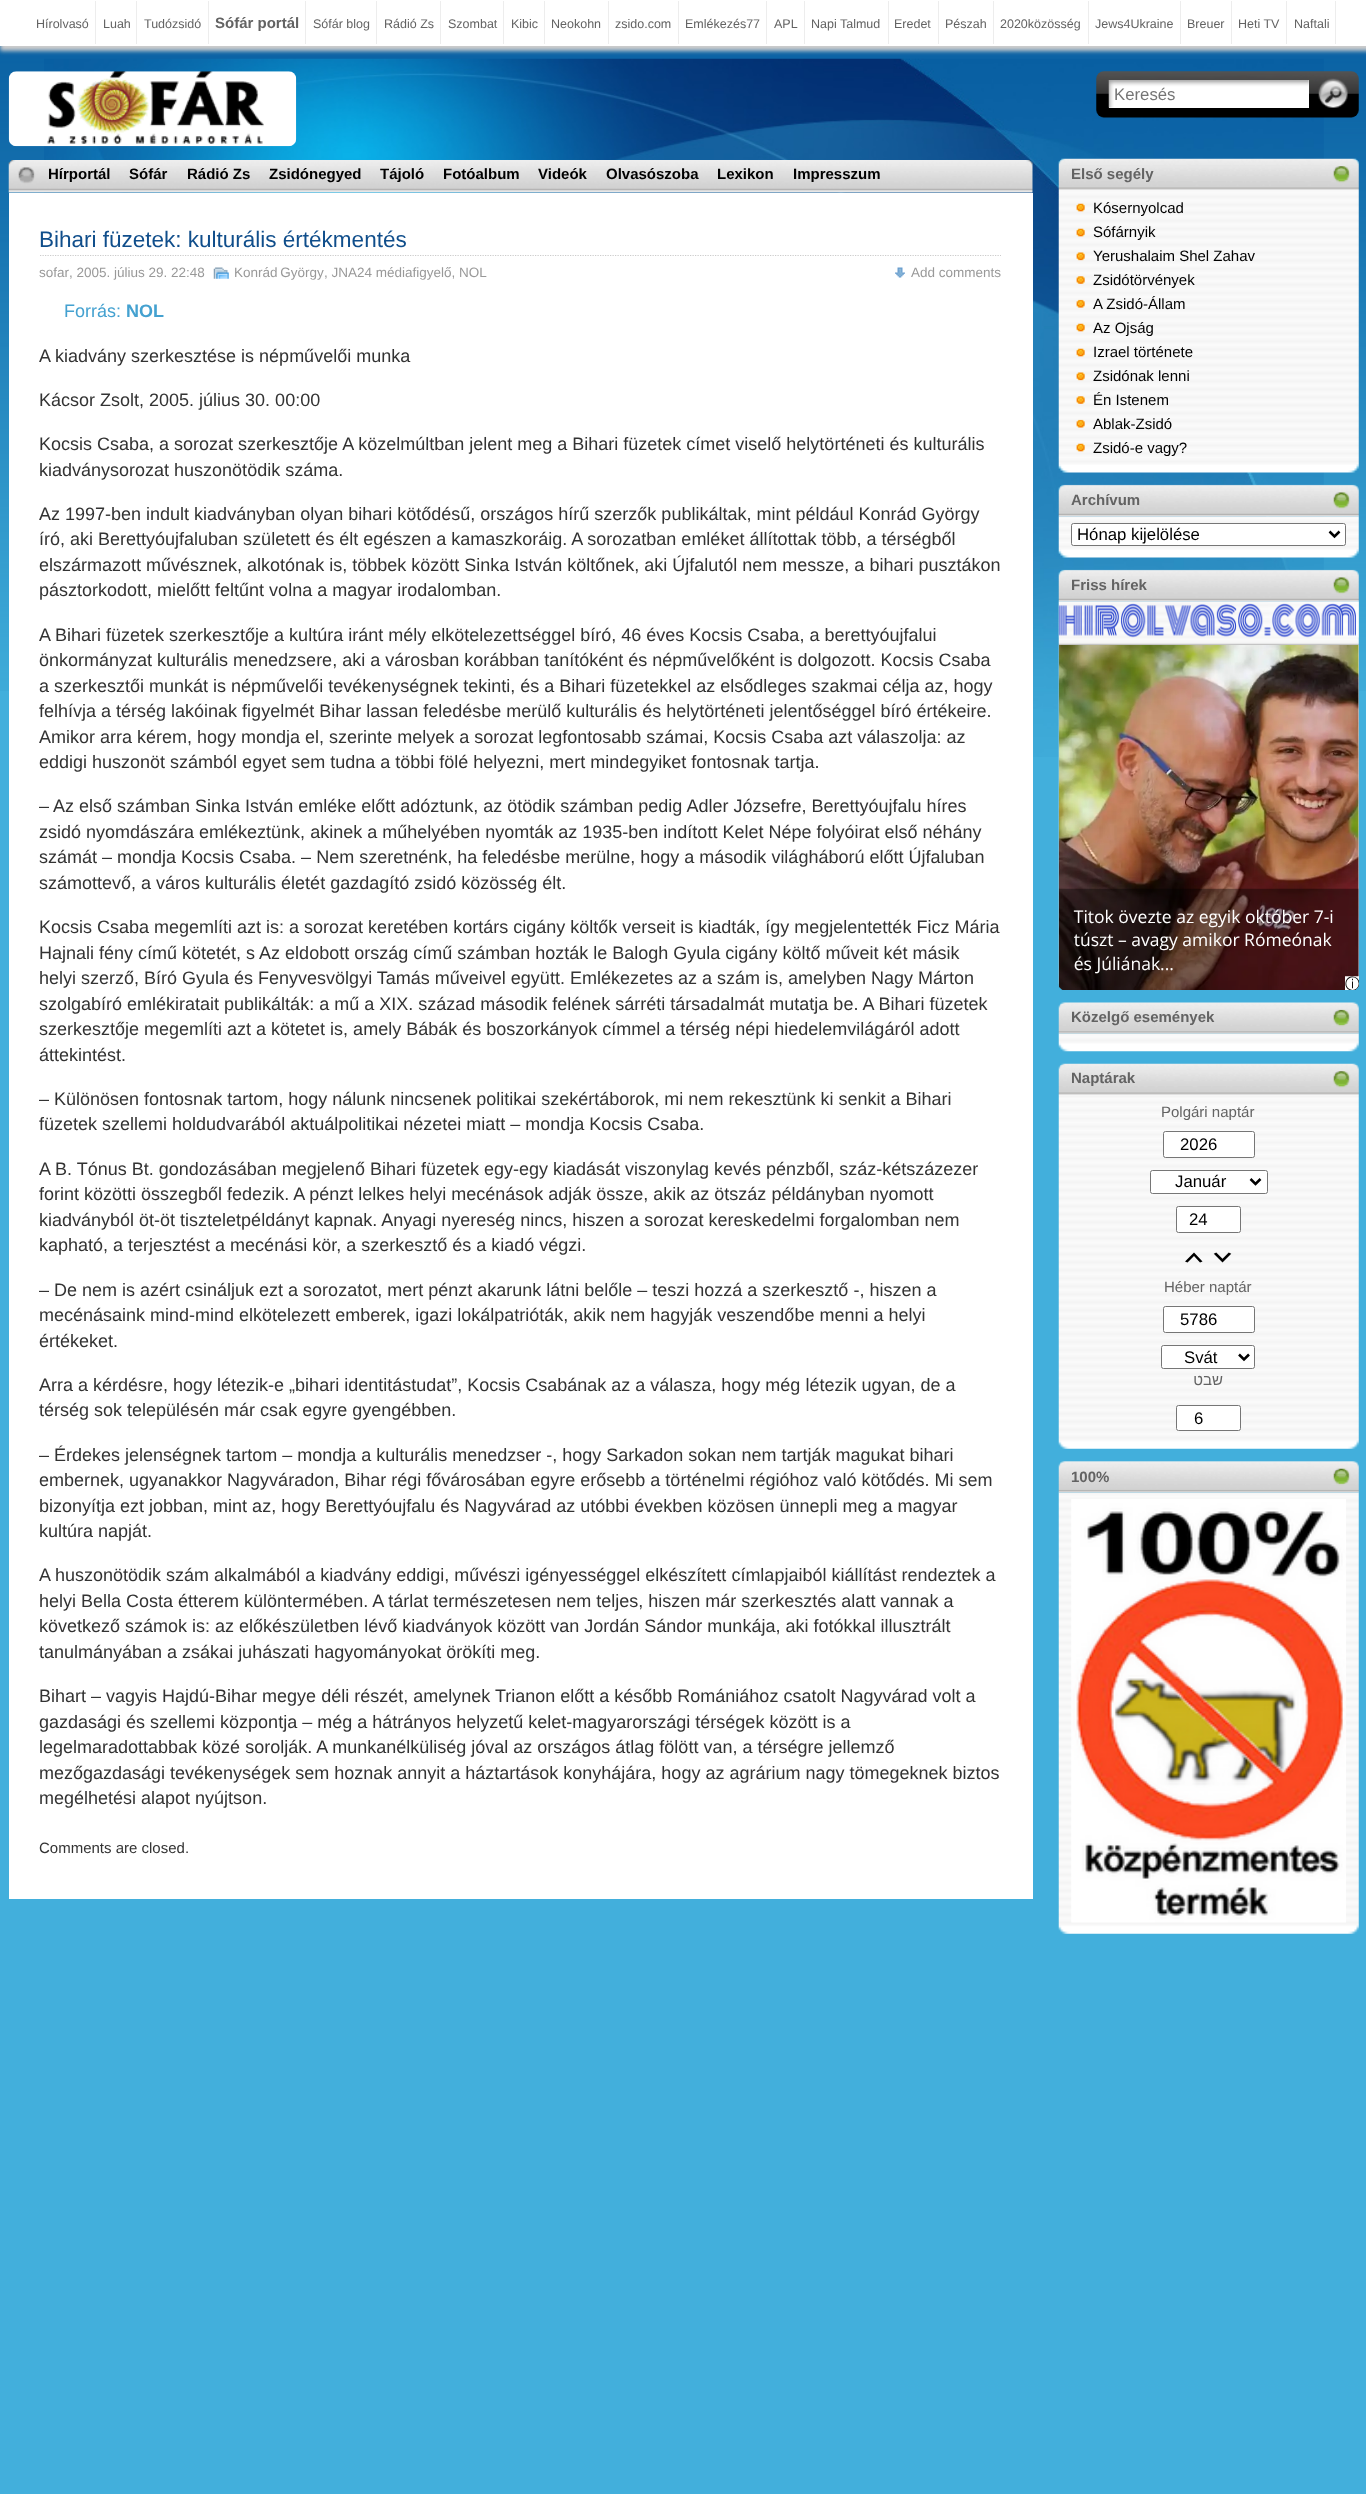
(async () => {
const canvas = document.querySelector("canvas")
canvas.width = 1366
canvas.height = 2494
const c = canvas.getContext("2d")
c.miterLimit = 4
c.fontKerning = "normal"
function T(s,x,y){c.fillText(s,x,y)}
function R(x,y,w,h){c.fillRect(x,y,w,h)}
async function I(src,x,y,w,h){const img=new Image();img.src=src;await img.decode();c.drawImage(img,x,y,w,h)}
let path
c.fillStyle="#42afdc"
R(0,0,1366,2494)
await I("1.png",0,46,1366,645)
c.fillStyle="#ccc"
c.filter="blur(2px)"
c.beginPath()
c.rect(0,0,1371,51)
c.fill()
c.filter="none"
c.fillStyle="#fff"
R(0,0,1366,46)
c.font="12.5px Liberation Sans"
c.fillStyle="#636363"
T("Hírolvasó",36,28)
c.fillStyle="#ededed"
R(95,1,1,43)
c.fillStyle="#636363"
T("Luah",103,28)
c.fillStyle="#ededed"
R(136,1,1,43)
c.fillStyle="#636363"
T("Tudózsidó",144,28)
c.fillStyle="#ededed"
R(208,1,1,43)
c.font="bold 15px Liberation Sans"
c.fillStyle="#636363"
T("Sófár portál",215,28)
c.fillStyle="#ededed"
R(305,1,1,43)
c.font="12.5px Liberation Sans"
c.fillStyle="#636363"
T("Sófár blog",313,28)
c.fillStyle="#ededed"
R(376,1,1,43)
c.fillStyle="#636363"
T("Rádió Zs",384,28)
c.fillStyle="#ededed"
R(440,1,1,43)
c.fillStyle="#636363"
T("Szombat",448,28)
c.fillStyle="#ededed"
R(503,1,1,43)
c.fillStyle="#636363"
T("Kibic",511,28)
c.fillStyle="#ededed"
R(544,1,1,43)
c.fillStyle="#636363"
T("Neokohn",551,28)
c.fillStyle="#ededed"
R(608,1,1,43)
c.fillStyle="#636363"
T("zsido.com",615,28)
c.fillStyle="#ededed"
R(678,1,1,43)
c.fillStyle="#636363"
T("Emlékezés77",685,28)
c.fillStyle="#ededed"
R(766,1,1,43)
c.fillStyle="#636363"
T("APL",774,28)
c.fillStyle="#ededed"
R(804,1,1,43)
c.fillStyle="#636363"
T("Napi Talmud",811,28)
c.fillStyle="#ededed"
R(888,1,1,43)
c.fillStyle="#636363"
T("Eredet",894,28)
c.fillStyle="#ededed"
R(938,1,1,43)
c.fillStyle="#636363"
T("Pészah",945,28)
c.fillStyle="#ededed"
R(993,1,1,43)
c.fillStyle="#636363"
T("2020közösség",1000,28)
c.fillStyle="#ededed"
R(1088,1,1,43)
c.fillStyle="#636363"
T("Jews4Ukraine",1095,28)
c.fillStyle="#ededed"
R(1180,1,1,43)
c.fillStyle="#636363"
T("Breuer",1187,28)
c.fillStyle="#ededed"
R(1231,1,1,43)
c.fillStyle="#636363"
T("Heti TV",1238,28)
c.fillStyle="#ededed"
R(1286,1,1,43)
c.fillStyle="#636363"
T("Naftali",1294,28)
c.fillStyle="#ededed"
R(1335,1,1,43)
await I("2.png",44,58,1280,699)
await I("3.png",8,71,289,76)
await I("4.png",1096,71,263,47)
c.fillStyle="#fff"
R(1109,80,200,28)
await I("5.png",1108,80,201,28)
c.font="16.75px Liberation Sans"
c.fillStyle="#757575"
T("Keresés",1114,100)
await I("6.png",1318,78,30,30)
await I("7.png",8,160,1025,33)
c.font="bold 15px Liberation Sans"
c.fillStyle="#000"
T("Hírportál",48,179)
T("Sófár",129,179)
T("Rádió Zs",187,179)
T("Zsidónegyed",269,179)
T("Tájoló",380,179)
T("Fotóalbum",443,179)
T("Videók",538,179)
T("Olvasószoba",606,179)
T("Lexikon",717,179)
T("Impresszum",793,179)
c.fillStyle="#fff"
R(9,193,1024,1706)
path = new Path2D("M40 255.5h961")
c.strokeStyle="#ccc"
c.lineWidth=1.2
c.setLineDash([1.25,1.25])
c.stroke(path)
c.font="22.5px Liberation Sans"
c.fillStyle="#104e8b"
T("Bihari füzetek: kulturális értékmentés",39,247)
c.font="13.5px Liberation Sans"
c.fillStyle="#999"
T("sofar",39,277)
T(", 2005. július 29. 22:48",69,277)
await I("8.png",213,267,16,12)
c.wordSpacing="-1px"
T("Konrád György",234,277)
c.wordSpacing="0px"
T(", JNA24 médiafigyelő, NOL",324,277)
await I("9.png",895,267,10,11)
T("Add comments",911,277)
c.font="18px Liberation Sans"
c.fillStyle="#44a1d0"
T("Forrás:",64,317)
c.font="bold 18px Liberation Sans"
T("NOL",126,317)
c.font="18px Liberation Sans"
c.fillStyle="#333"
T("A kiadvány szerkesztése is népművelői munka",39,362)
T("Kácsor Zsolt, 2005. július 30. 00:00",39,406)
T("Kocsis Csaba, a sorozat szerkesztője A közelmúltban jelent meg a Bihari füzetek címet viselő helytörténeti és kulturális",39,450)
T("kiadványsorozat huszonötödik száma.",39,476)
T("Az 1997-ben indult kiadványban olyan bihari kötődésű, országos hírű szerzők publikáltak, mint például Konrád György",39,520)
T("író, aki Berettyóujfaluban született és élt egészen a kamaszkoráig. A sorozatban emléket állítottak több, a térségből",39,545)
T("elszármazott művésznek, alkotónak is, többek között Sinka István költőnek, aki Újfalutól nem messze, a bihari pusztákon",39,571)
T("pásztorkodott, mielőtt feltűnt volna a magyar irodalomban.",39,596)
T("A Bihari füzetek szerkesztője a kultúra iránt mély elkötelezettséggel bíró, 46 éves Kocsis Csaba, a berettyóujfalui",39,641)
T("önkormányzat kulturális menedzsere, aki a városban korábban tanítóként és népművelőként is dolgozott. Kocsis Csaba",39,666)
T("a szerkesztői munkát is népművelői tevékenységnek tekinti, és a Bihari füzetekkel az elsődleges szakmai célja az, hogy",39,692)
T("felhívja a térség lakóinak figyelmét Bihar lassan feledésbe merülő kulturális és helytörténeti jelentőséggel bíró értékeire.",39,717)
T("Amikor arra kérem, hogy mondja el, szerinte melyek a sorozat legfontosabb számai, Kocsis Csaba azt válaszolja: az",39,743)
T("eddigi huszonöt számból egyet sem tudna a többi fölé helyezni, mert mindegyiket fontosnak tartja.",39,768)
T("– Az első számban Sinka István emléke előtt adóztunk, az ötödik számban pedig Adler Józsefre, Berettyóujfalu híres",39,812)
T("zsidó nyomdászára emlékeztünk, akinek a műhelyében nyomták az 1935-ben indított Kelet Népe folyóirat első néhány",39,838)
T("számát – mondja Kocsis Csaba. – Nem szeretnénk, ha feledésbe merülne, hogy a második világháború előtt Újfaluban",39,863)
T("számottevő, a város kulturális életét gazdagító zsidó közösség élt.",39,889)
T("Kocsis Csaba megemlíti azt is: a sorozat keretében kortárs cigány költők verseit is kiadták, így megjelentették Ficz Mária",39,933)
T("Hajnali fény című kötetét, s Az eldobott ország című számban hozták le Balogh Gyula cigány költő műveit két másik",39,959)
T("helyi szerző, Bíró Gyula és Fenyvesvölgyi Tamás műveivel együtt. Emlékezetes az a szám is, amelyben Nagy Márton",39,984)
T("szolgabíró emlékiratait publikálták: a mű a XIX. század második felének sárréti társadalmát mutatja be. A Bihari füzetek",39,1010)
T("szerkesztője megemlíti azt a kötetet is, amely Bábák és boszorkányok címmel a térség népi hiedelemvilágáról adott",39,1035)
T("áttekintést.",39,1061)
T("– Különösen fontosnak tartom, hogy nálunk nincsenek politikai szekértáborok, mi nem rekesztünk ki senkit a Bihari",39,1105)
T("füzetek szellemi holdudvarából aktuálpolitikai nézetei miatt – mondja Kocsis Csaba.",39,1130)
T("A B. Tónus Bt. gondozásában megjelenő Bihari füzetek egy-egy kiadását viszonylag kevés pénzből, száz-kétszázezer",39,1175)
T("forint közötti összegből fedezik. A pénzt lelkes helyi mecénások adják össze, akik az ötszáz példányban nyomott",39,1200)
T("kiadványból öt-öt tiszteletpéldányt kapnak. Anyagi nyereség nincs, hiszen a sorozat kereskedelmi forgalomban nem",39,1226)
T("kapható, a terjesztést a mecénási kör, a szerkesztő és a kiadó végzi.",39,1251)
T("– De nem is azért csináljuk ezt a sorozatot, mert pénzt akarunk látni belőle – teszi hozzá a szerkesztő -, hiszen a",39,1296)
T("mecénásaink mind-mind elkötelezett emberek, igazi lokálpatrióták, akik nem hagyják veszendőbe menni a helyi",39,1321)
T("értékeket.",39,1347)
T("Arra a kérdésre, hogy létezik-e „bihari identitástudat”, Kocsis Csabának az a válasza, hogy még létezik ugyan, de a",39,1391)
T("térség sok településén már csak egyre gyengébben.",39,1416)
T("– Érdekes jelenségnek tartom – mondja a kulturális menedzser -, hogy Sarkadon sokan nem tartják magukat bihari",39,1461)
T("embernek, ugyanakkor Nagyváradon, Bihar régi fővárosában egyre erősebb a történelmi régióhoz való kötődés. Mi sem",39,1486)
T("bizonyítja ezt jobban, mint az, hogy Berettyóujfalu és Nagyvárad az utóbbi években közösen ünnepli meg a magyar",39,1512)
T("kultúra napját.",39,1537)
T("A huszonötödik szám alkalmából a kiadvány eddigi, művészi igényességgel elkészített címlapjaiból kiállítást rendeztek a",39,1581)
T("helyi Bella Costa étterem különtermében. A tárlat természetesen nem teljes, hiszen már szerkesztés alatt vannak a",39,1607)
T("következő számok is: az előkészületben lévő kiadványok között van Jordán Sándor munkája, aki fotókkal illusztrált",39,1632)
T("tanulmányában a zsákai juhászati hagyományokat örökíti meg.",39,1658)
T("Bihart – vagyis Hajdú-Bihar megye déli részét, amelynek Trianon előtt a később Romániához csatolt Nagyvárad volt a",39,1702)
T("gazdasági és szellemi központja – még a hátrányos helyzetű kelet-magyarországi térségek között is a",39,1728)
T("legelmaradottabbak közé sorolják. A munkanélküliség jóval az országos átlag fölött van, a térségre jellemző",39,1753)
T("mezőgazdasági tevékenységek sem hoznak annyit a háztartások konyhájára, hogy az agrárium nagy tömegeknek biztos",39,1779)
T("megélhetési alapot nyújtson.",39,1804)
c.font="15px Liberation Sans"
T("Comments are closed.",39,1853)
await I("10.png",1058,158,301,32)
c.font="bold 15px Liberation Sans"
c.fillStyle="#636363"
T("Első segély",1071,179)
await I("11.png",1058,190,301,283)
await I("12.png",1076,203,9,9)
c.font="15px Liberation Sans"
c.fillStyle="#000"
T("Kósernyolcad",1093,213)
await I("13.png",1076,228,9,9)
T("Sófárnyik",1093,237)
await I("14.png",1076,252,9,9)
T("Yerushalaim Shel Zahav",1093,261)
await I("15.png",1076,276,9,8)
T("Zsidótörvények",1093,285)
await I("16.png",1076,299,9,9)
T("A Zsidó-Állam",1093,309)
await I("17.png",1076,323,9,9)
T("Az Ojság",1093,333)
await I("18.png",1076,348,9,9)
T("Izrael története",1093,357)
await I("19.png",1076,372,9,9)
T("Zsidónak lenni",1093,381)
await I("20.png",1076,396,9,8)
T("Én Istenem",1093,405)
await I("21.png",1076,419,9,9)
T("Ablak-Zsidó",1093,429)
await I("22.png",1076,443,9,9)
T("Zsidó-e vagy?",1093,453)
await I("24.png",1058,516,301,42)
await I("23.png",1058,484,301,33)
c.font="bold 15px Liberation Sans"
c.fillStyle="#636363"
T("Archívum",1071,505)
c.fillStyle="#fff"
c.beginPath()
c.roundRect(1071.5,523.5,274,22,2)
c.fill()
c.strokeStyle="#767676"
c.lineWidth=1
c.setLineDash([])
c.stroke()
path = new Path2D("M1329.5 531.5l5 5l5-5")
c.strokeStyle="#000"
c.lineWidth=2.5
c.stroke(path)
c.font="16.75px Liberation Sans"
c.fillStyle="#000"
T("Hónap kijelölése",1077,540)
await I("26.png",1058,601,301,389)
await I("27.png",1058,601,301,389)
await I("25.png",1058,569,301,33)
c.font="bold 15px Liberation Sans"
c.fillStyle="#636363"
T("Friss hírek",1071,590)
await I("29.png",1058,1033,301,19)
await I("28.png",1058,1002,301,32)
T("Közelgő események",1071,1022)
await I("30.png",1058,1063,301,32)
T("Naptárak",1071,1083)
await I("31.png",1058,1095,301,354)
c.font="15px Liberation Sans"
T("Polgári naptár",1161,1117)
c.fillStyle="#fff"
c.beginPath()
c.roundRect(1163.5,1131.5,91,26,2)
c.fill()
c.strokeStyle="#767676"
c.lineWidth=1
c.stroke()
c.font="16.75px Liberation Sans"
c.fillStyle="#000"
T("2026",1180,1150)
c.fillStyle="#fff"
c.beginPath()
c.roundRect(1150.5,1170.5,117,23,2)
c.fill()
c.stroke()
path = new Path2D("M1250.5 1179l5 5l5-5")
c.strokeStyle="#000"
c.lineWidth=2.5
c.stroke(path)
c.fillStyle="#000"
T("Január",1175,1187)
c.fillStyle="#fff"
c.beginPath()
c.roundRect(1176.5,1206.5,64,26,2)
c.fill()
c.strokeStyle="#767676"
c.lineWidth=1
c.stroke()
c.fillStyle="#000"
T("24",1189,1225)
path = new Path2D("M1200 1262.5l-6-6.5l-6.5 6.5l-2.5-1l9-9l8.5 9z")
c.fill(path)
await I("32.png",1213,1252,19,11)
c.font="15px Liberation Sans"
c.fillStyle="#636363"
T("Héber naptár",1164,1292)
c.fillStyle="#fff"
c.beginPath()
c.roundRect(1163.5,1306.5,91,26,2)
c.fill()
c.stroke()
c.font="16.75px Liberation Sans"
c.fillStyle="#000"
T("5786",1180,1325)
c.fillStyle="#fff"
c.beginPath()
c.roundRect(1161.5,1345.5,93,23,2)
c.fill()
c.stroke()
path = new Path2D("M1239 1354.5l5 5l5-5")
c.strokeStyle="#000"
c.lineWidth=2.5
c.stroke(path)
c.fillStyle="#000"
T("Svát",1184,1363)
c.direction="rtl"
c.font="15px Liberation Sans"
c.fillStyle="#636363"
T("שבט",1223,1385)
c.fillStyle="#fff"
c.beginPath()
c.roundRect(1176.5,1405.5,64,25,2)
c.fill()
c.strokeStyle="#767676"
c.lineWidth=1
c.stroke()
c.direction="ltr"
c.font="16.75px Liberation Sans"
c.fillStyle="#000"
T("6",1194,1424)
await I("34.png",1058,1492,301,442)
await I("33.png",1058,1461,301,32)
c.font="bold 15px Liberation Sans"
c.fillStyle="#636363"
T("100%",1071,1482)
await I("35.png",1071,1499,275,424)
})()
